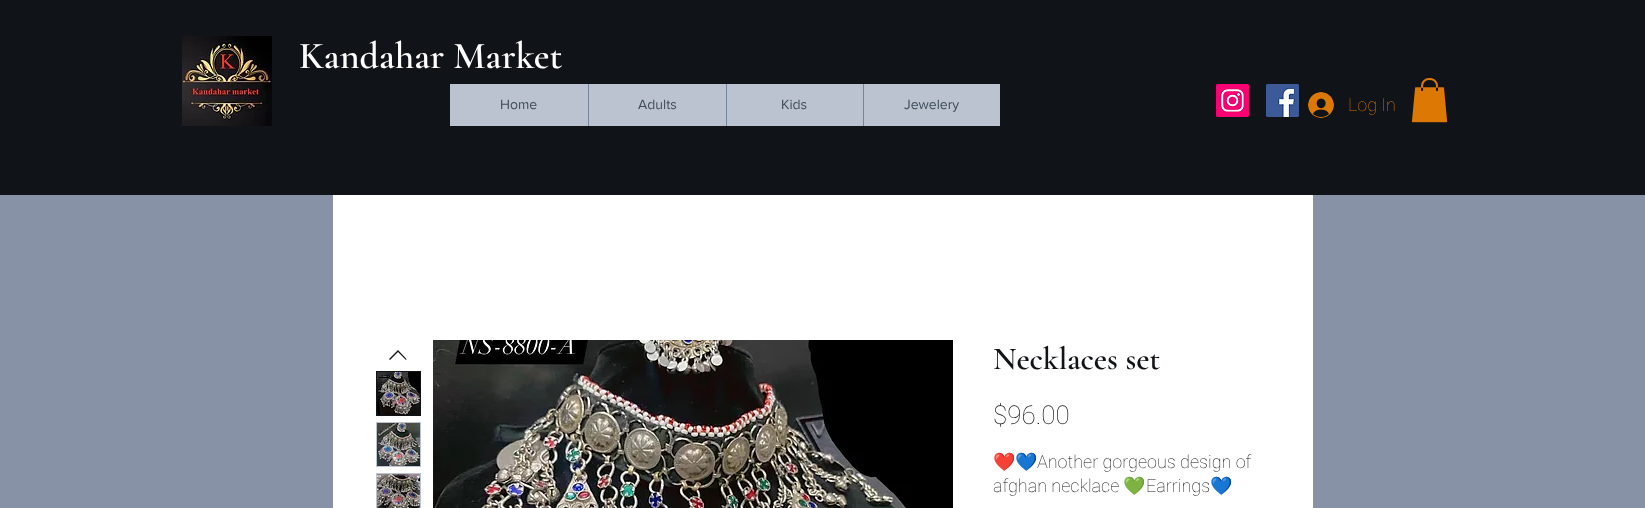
(async () => {
const canvas = document.querySelector("canvas")
canvas.width = 1645
canvas.height = 508
const c = canvas.getContext("2d")
c.miterLimit = 4
c.fontKerning = "normal"
function T(s,x,y){c.fillText(s,x,y)}
function R(x,y,w,h){c.fillRect(x,y,w,h)}
async function I(src,x,y,w,h){const img=new Image();img.src=src;await img.decode();c.drawImage(img,x,y,w,h)}
let path
c.fillStyle="#8792a6"
R(0,0,1645,508)
c.fillStyle="#101317"
R(0,0,1645,195)
await I("1.png",182,36,90,90)
c.font="600 38px Cormorant Garamond"
c.fillStyle="#fff"
T("Kandahar Market",299,68)
await I("2.png",1216,84,33,33)
await I("3.png",1266,84,33,33)
await I("4.png",1308,92,26,26)
c.font="100 18px Roboto"
c.fillStyle="#dd7805"
T("Log In",1348,111)
await I("5.png",1411,78,37,45)
c.fillStyle="#bac3cf"
R(450,84,550,42)
c.font="14px 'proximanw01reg'"
c.fillStyle="#404c5c"
T("Home",500,109)
c.fillStyle="#74869e"
R(588,84,1,42)
c.fillStyle="#404c5c"
T("Adults",638,109)
c.fillStyle="#74869e"
R(726,84,1,42)
c.fillStyle="#404c5c"
T("Kids",781,109)
c.fillStyle="#74869e"
R(863,84,1,42)
c.fillStyle="#404c5c"
T("Jewelery",904,109)
c.fillStyle="#fff"
R(333,195,980,313)
c.fillStyle="#101317"
path = new Path2D("M398 350l8.5 9l-.5 1l-8-8l-8 8l-1-1z")
c.fill(path,"evenodd")
c.strokeStyle="#101317"
c.strokeRect(376.5,371.5,44,44)
await I("6.png",377,372,43,43)
c.fillStyle="#bac3cf"
R(376,422,45,45)
await I("7.png",377,423,43,43)
R(376,473,45,35)
await I("8.png",377,474,43,34)
await I("9.png",433,340,520,168)
c.font="600 32px Cormorant Garamond"
c.fillStyle="#101317"
T("Necklaces set",993,369)
c.font="100 26px Roboto"
T("$96.00",993,424)
c.save()
c.beginPath()
c.rect(993,450,280,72)
c.clip()
c.font="18px Noto Color Emoji"
T("❤️💙",993,468)
c.restore()
c.font="100 18px Roboto"
T("Another gorgeous design of",1037,468)
T("afghan necklace",993,492)
c.font="18px Noto Color Emoji"
T("💚",1123,492)
c.font="100 18px Roboto"
T("Earrings",1146,492)
c.font="18px Noto Color Emoji"
T("💙",1210,492)
})()
